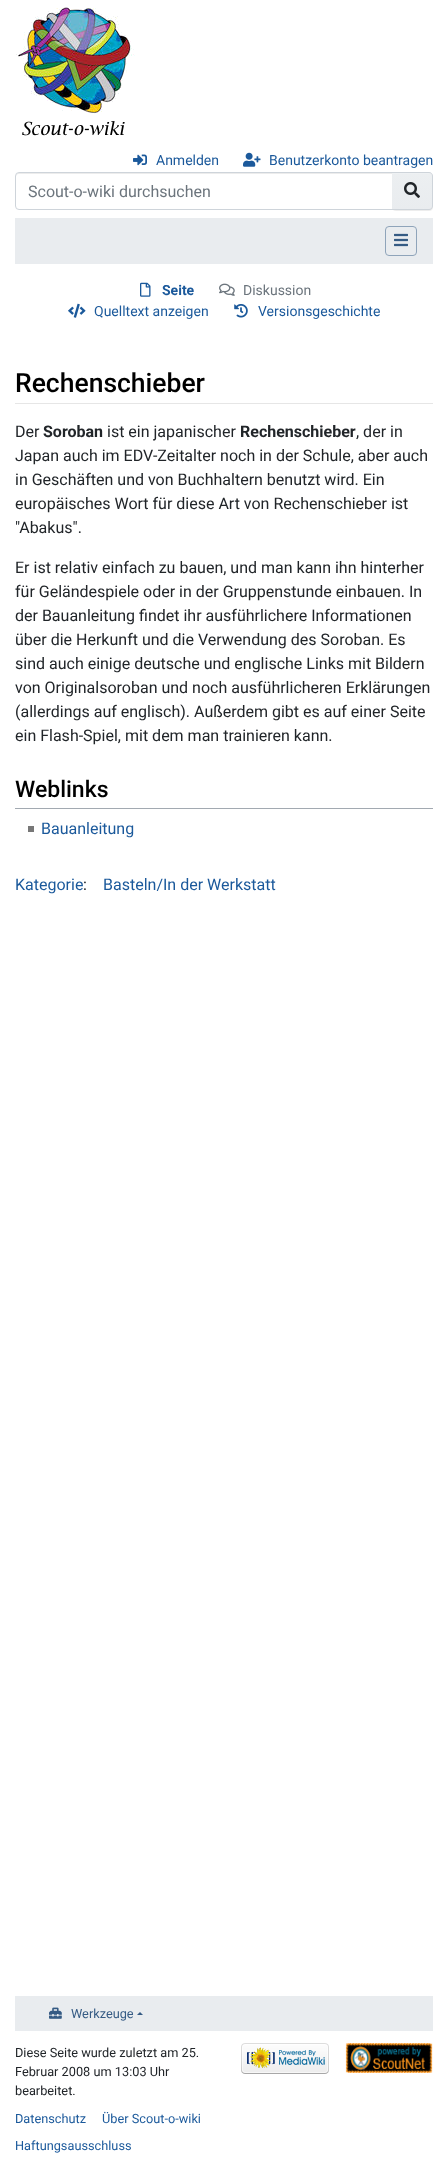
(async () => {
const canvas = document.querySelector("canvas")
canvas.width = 448
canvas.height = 2167
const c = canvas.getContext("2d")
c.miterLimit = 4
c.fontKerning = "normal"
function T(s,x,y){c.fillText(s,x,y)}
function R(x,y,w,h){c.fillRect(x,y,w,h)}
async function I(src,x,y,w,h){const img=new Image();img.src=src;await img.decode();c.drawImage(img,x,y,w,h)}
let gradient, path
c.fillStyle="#fff"
R(0,0,448,2167)
await I("1.png",16,7,119,129)
await I("2.png",133,154,14,12)
c.font="14px Roboto"
c.fillStyle="#1b599b"
T("Anmelden",156,165)
await I("3.png",243,152,18,15)
T("Benutzerkonto beantragen",269,165)
c.fillStyle="#ececec"
path = new Path2D("M19 174h373v-1h-373c-2 0-3 1-3 3v1c0-2 1-3 3-3z")
c.fill(path)
c.beginPath()
c.roundRect(15.5,172.5,377,37,[3.5,0,0,3.5])
c.strokeStyle="#ced4da"
c.stroke()
c.font="16px Roboto"
c.fillStyle="#6c757d"
T("Scout-o-wiki durchsuchen",28,197)
c.fillStyle="#00000012"
c.filter="blur(0.5px)"
c.beginPath()
c.roundRect(392,173,41,38,4)
c.fill()
c.filter="none"
gradient = c.createLinearGradient(412,173,412,209)
gradient.addColorStop(0,"#eceff1")
gradient.addColorStop(1,"#e9ecef")
c.fillStyle = gradient
c.beginPath()
c.roundRect(392,173,40,36,[0,3,3,0])
c.fill()
c.fillStyle="#ffffff26"
path = new Path2D("M392 174h37c2 0 3 1 3 3v-1c0-2-1-3-3-3h-37z")
c.fill(path)
c.fillStyle="#ced4da"
path = new Path2D("M392 172h37c2 0 4 2 4 4v30c0 2-2 4-4 4h-37zm0 1h37c2 0 3 1 3 3v30c0 2-1 3-3 3h-37z")
c.fill(path,"evenodd")
await I("4.png",404,182,16,16)
c.fillStyle="#e9ecef"
R(15,218,418,46)
c.beginPath()
c.roundRect(385.5,226.5,31,29,3.5)
c.strokeStyle="#8fa4ba"
c.stroke()
await I("5.png",394,233,14,14)
await I("6.png",140,282,11,15)
c.font="bold 14px Roboto"
c.fillStyle="#1b599b"
T("Seite",162,295)
await I("7.png",219,283,16,13)
c.font="14px Roboto"
c.fillStyle="#6c757d"
T("Diskussion",243,295)
await I("8.png",68,303,18,15)
c.fillStyle="#1b599b"
T("Quelltext anzeigen",94,316)
await I("9.png",234,304,14,14)
T("Versionsgeschichte",258,316)
c.fillStyle="#e6e6e6"
R(15,403,418,1)
c.font="500 26.5px Roboto"
c.fillStyle="#000"
T("Rechenschieber",15,392)
c.font="16px Roboto"
c.fillStyle="#212529"
T("Der",15,437)
c.font="bold 16px Roboto"
T("Soroban",43,437)
c.font="16px Roboto"
T("ist ein japanischer",107,437)
c.font="bold 16px Roboto"
T("Rechenschieber",240,437)
c.font="16px Roboto"
T(", der in",356,437)
T("Japan auch im EDV-Zeitalter noch in der Schule, aber auch",15,461)
T("in Geschäften und von Buchhaltern benutzt wird. Ein",15,485)
T("europäisches Wort für diese Art von Rechenschieber ist",15,509)
T("\"Abakus\".",15,533)
T("Er ist relativ einfach zu bauen, und man kann ihn hinterher",15,573)
T("für Geländespiele oder in der Gruppenstunde einbauen. In",15,597)
T("der Bauanleitung findet ihr ausführlichere Informationen",15,621)
T("über die Herkunft und die Verwendung des Soroban. Es",15,645)
T("sind auch einige deutsche und englische Links mit Bildern",15,669)
T("von Originalsoroban und noch ausführlicheren Erklärungen",15,693)
T("(allerdings auf englisch). Außerdem gibt es auf einer Seite",15,717)
T("ein Flash-Spiel, mit dem man trainieren kann.",15,741)
c.fillStyle="#a2a9b1"
R(15,808,418,1)
c.font="500 23px Roboto"
c.fillStyle="#000"
T("Weblinks",15,797)
c.fillStyle="#777"
R(28,826,6,6)
c.font="16px Roboto"
c.fillStyle="#1b599b"
T("Bauanleitung",41,834)
T("Kategorie",15,890)
c.fillStyle="#212529"
T(":",83,890)
c.fillStyle="#1b599b"
T("Basteln/In der Werkstatt",103,890)
c.fillStyle="#e9ecef"
R(15,1996,418,35)
await I("10.png",49,2007,13,12)
c.font="12.75px Roboto"
c.fillStyle="#355b84"
T("Werkzeuge",71,2018)
path = new Path2D("M143 2015h-6l3-3z")
c.fill(path)
c.fillStyle="#212529"
T("Diese Seite wurde zuletzt am 25.",15,2057)
T("Februar 2008 um 13:03 Uhr",15,2076)
T("bearbeitet.",15,2095)
c.fillStyle="#1b599b"
T("Datenschutz",15,2123)
T("Über Scout-o-wiki",102,2123)
T("Haftungsausschluss",15,2150)
await I("11.png",241,2043,88,31)
await I("12.png",345,2043,88,30)
})()
